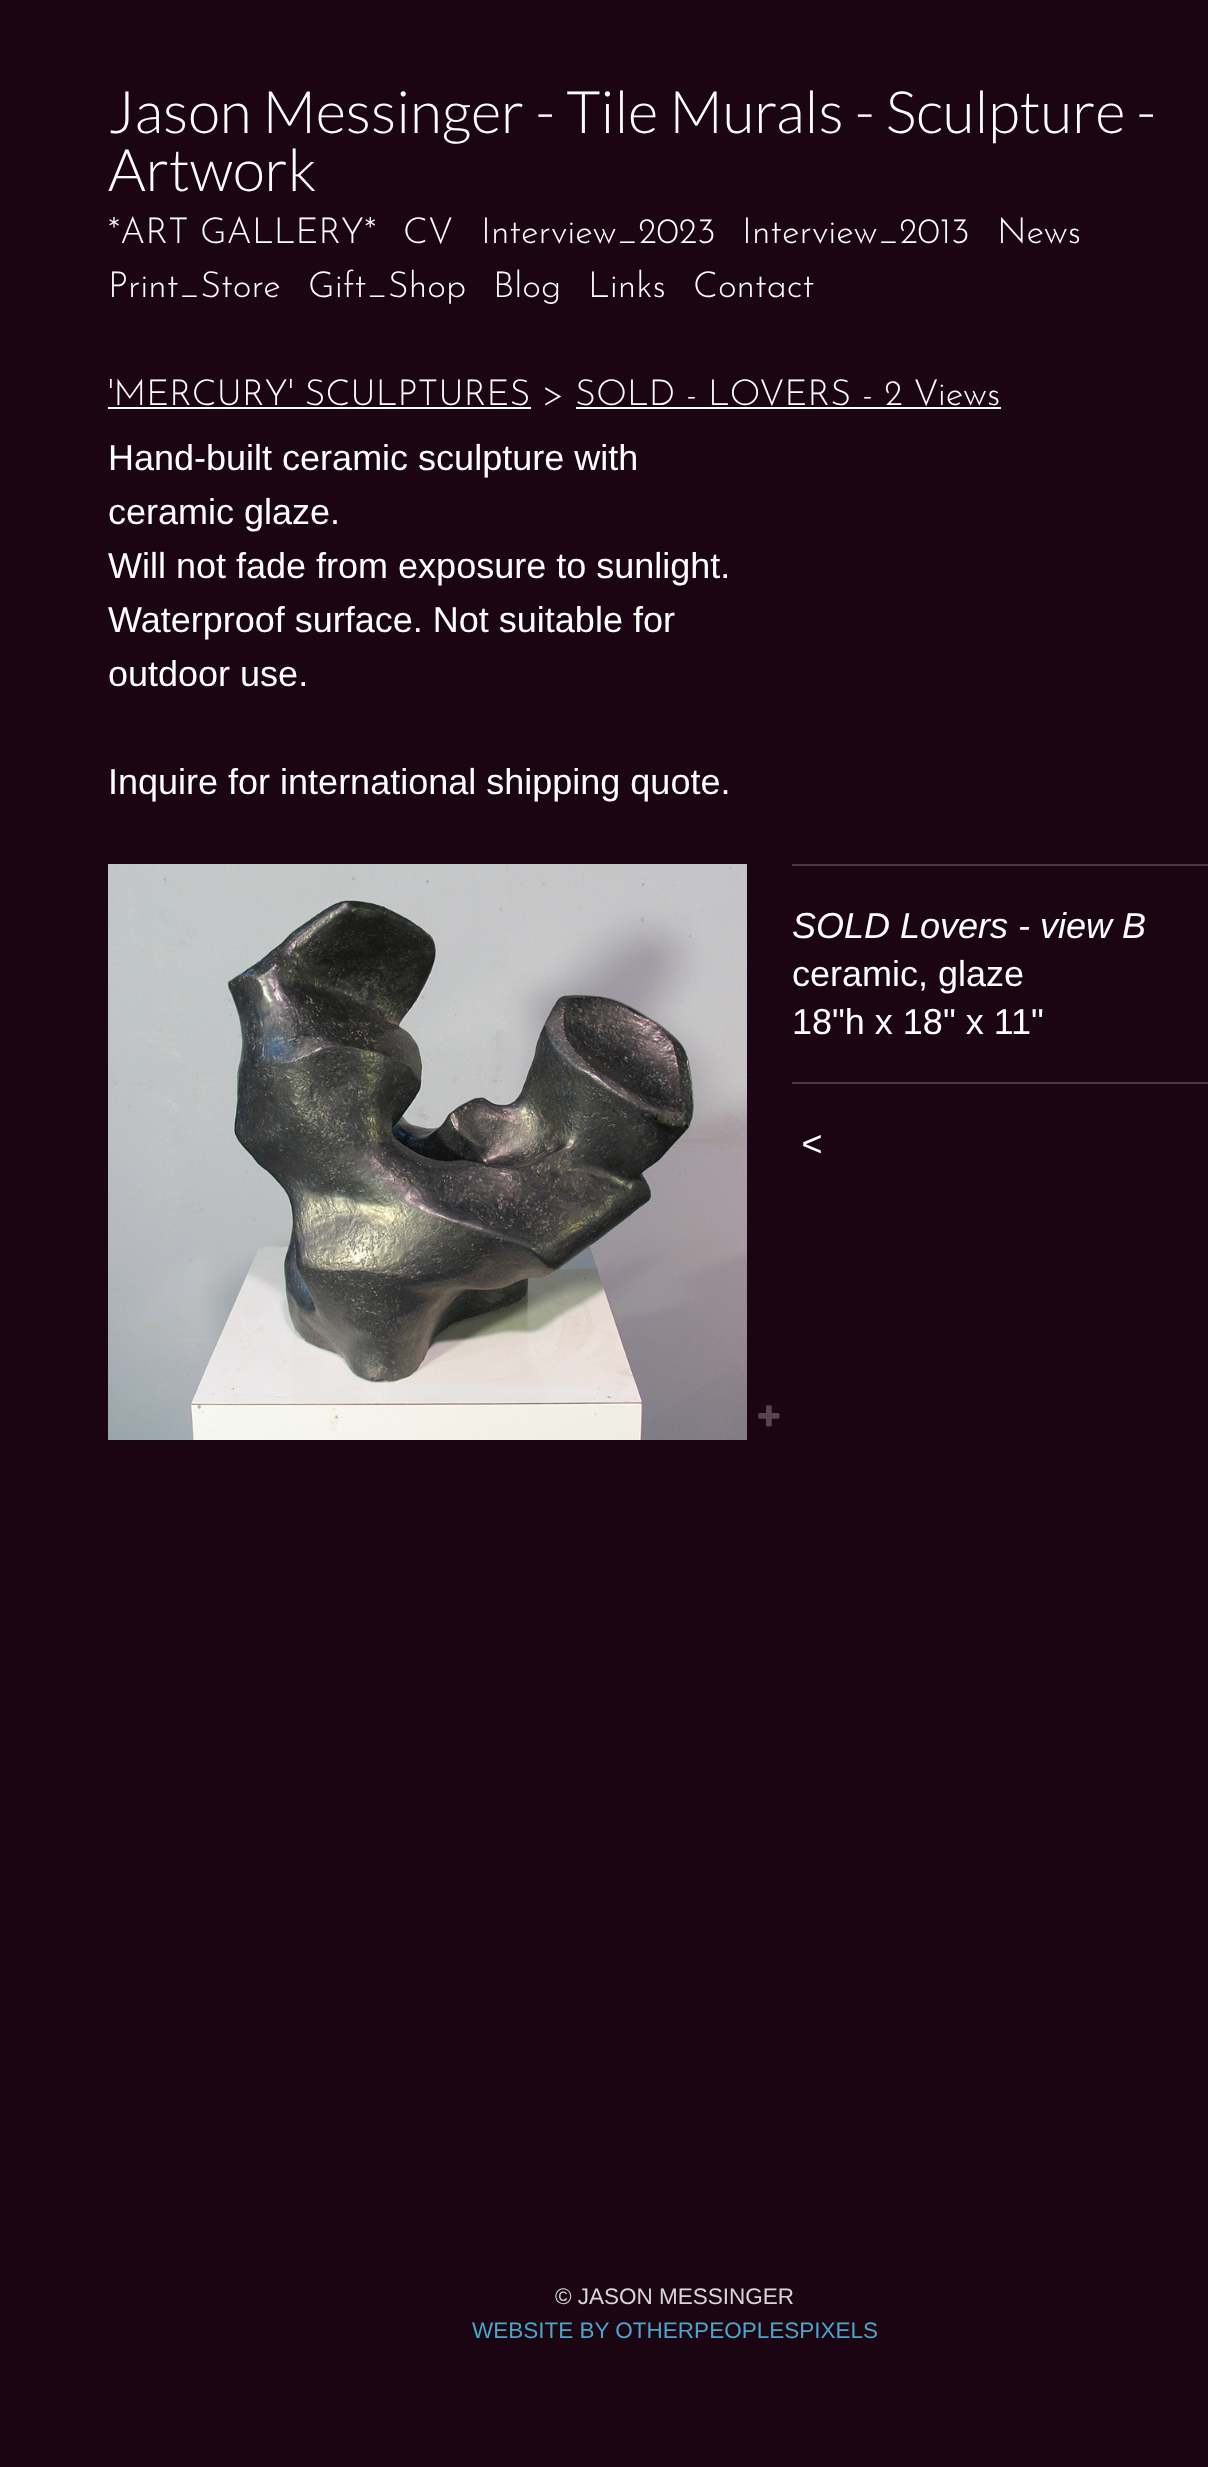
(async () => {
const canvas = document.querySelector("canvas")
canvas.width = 1208
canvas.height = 2467
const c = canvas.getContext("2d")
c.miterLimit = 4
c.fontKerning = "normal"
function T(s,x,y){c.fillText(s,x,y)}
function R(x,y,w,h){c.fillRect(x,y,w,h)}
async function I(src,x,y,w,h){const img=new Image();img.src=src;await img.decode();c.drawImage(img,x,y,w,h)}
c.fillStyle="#1c0513"
R(0,0,1208,2467)
c.font="300 58.5px Lato"
c.fillStyle="#fff"
T("Jason Messinger - Tile Murals - Sculpture -",108,133)
T("Artwork",108,191)
c.font="100 36px Josefin Sans"
T("*ART GALLERY*",108,243)
T("CV",403,243)
T("Interview_2023",481,243)
T("Interview_2013",742,243)
T("News",997,243)
T("Print_Store",108,297)
T("Gift_Shop",308,297)
T("Blog",493,297)
T("Links",588,297)
T("Contact",693,297)
T("'MERCURY' SCULPTURES > SOLD - LOVERS - 2 Views",108,405)
R(108,407,423,2)
R(576,407,425,2)
c.font="36px Liberation Sans"
T("Hand-built ceramic sculpture with",108,470)
T("ceramic glaze.",108,524)
T("Will not fade from exposure to sunlight.",108,578)
T("Waterproof surface. Not suitable for",108,632)
T("outdoor use.",108,686)
T("Inquire for international shipping quote.",108,794)
await I("1.png",108,864,639,576)
await I("2.png",758,1405,22,22)
c.fillStyle="#493742"
R(792,864,416,2)
c.font="italic 36px Liberation Sans"
c.fillStyle="#fff"
T("SOLD Lovers - view B",792,938)
c.font="36px Liberation Sans"
T("ceramic, glaze",792,986)
T("18\"h x 18\" x 11\"",792,1034)
c.fillStyle="#493742"
R(792,1082,416,2)
c.letterSpacing="2px"
c.font="italic 36px Liberation Sans"
c.fillStyle="#fff"
T("<",801,1156)
c.letterSpacing="0px"
c.font="22.5px Liberation Sans"
c.fillStyle="#d6d6d6"
T("© JASON MESSINGER",555,2304)
c.fillStyle="#4ca4c8"
T("WEBSITE BY OTHERPEOPLESPIXELS",472,2338)
})()
